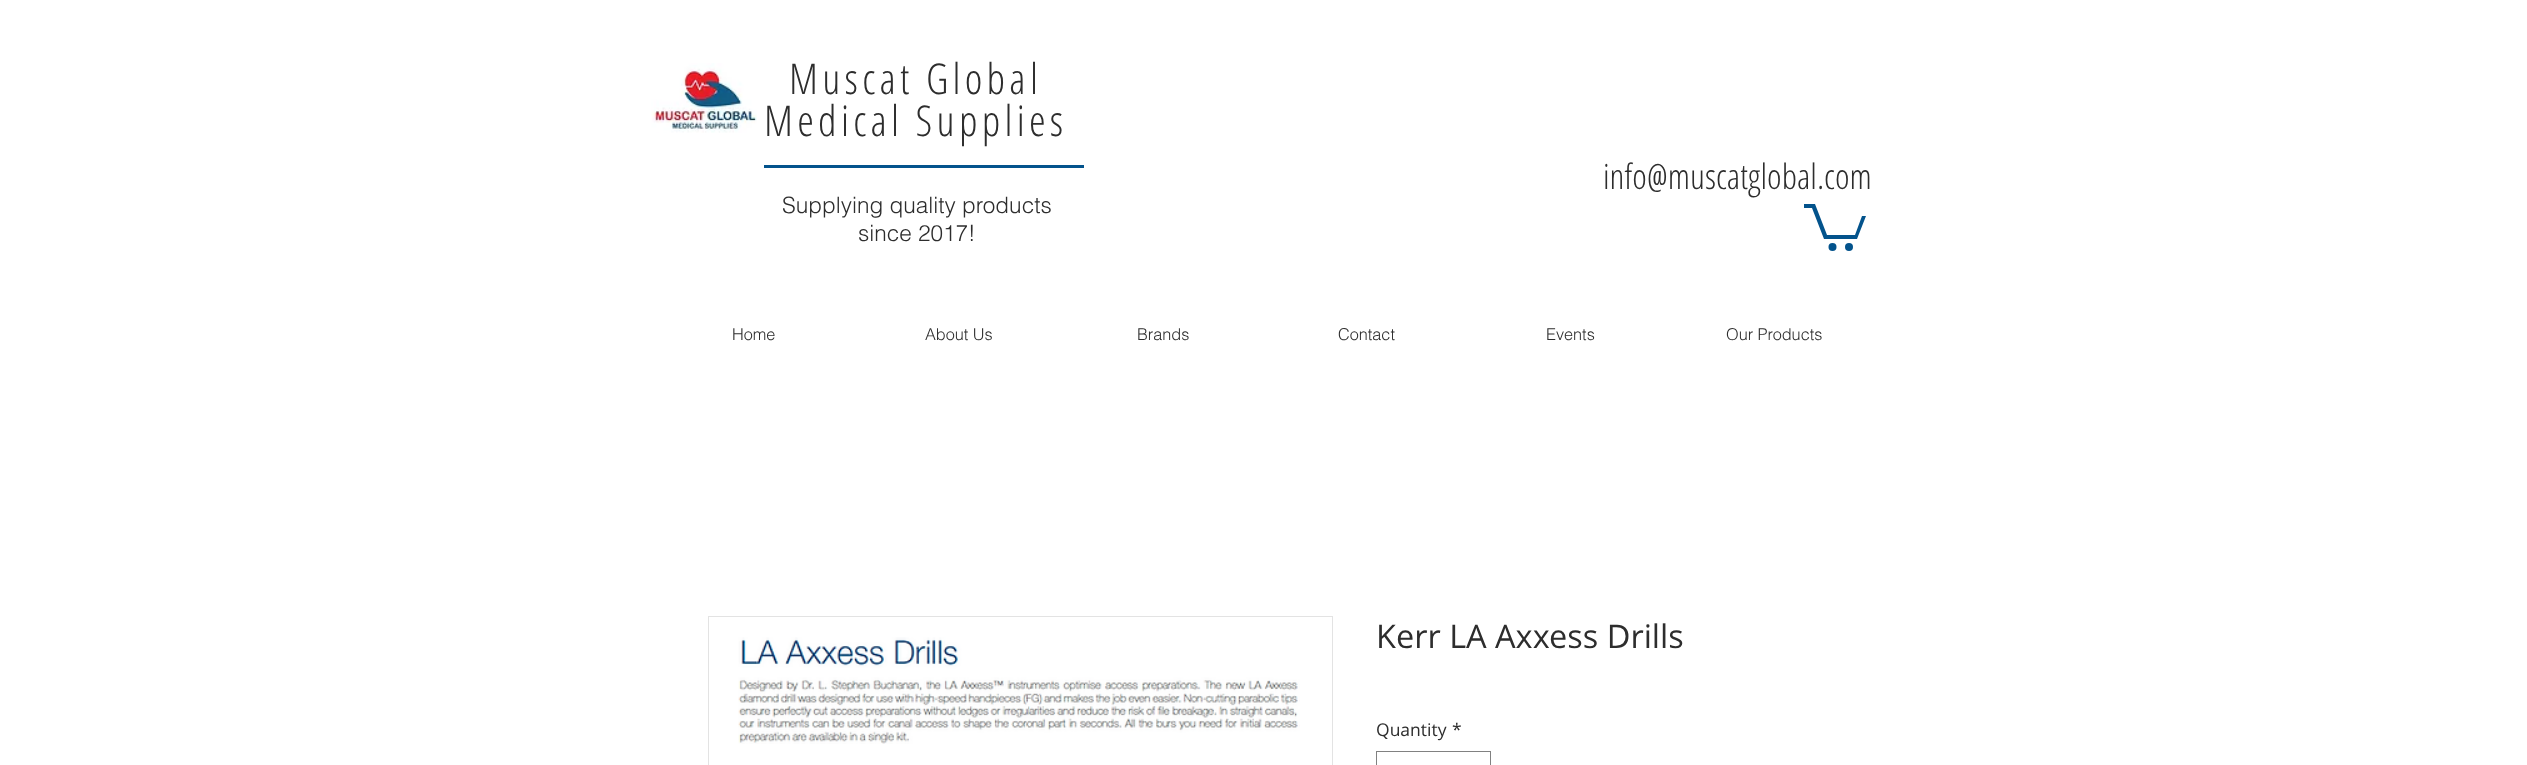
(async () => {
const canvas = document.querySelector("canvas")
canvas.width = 2527
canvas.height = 765
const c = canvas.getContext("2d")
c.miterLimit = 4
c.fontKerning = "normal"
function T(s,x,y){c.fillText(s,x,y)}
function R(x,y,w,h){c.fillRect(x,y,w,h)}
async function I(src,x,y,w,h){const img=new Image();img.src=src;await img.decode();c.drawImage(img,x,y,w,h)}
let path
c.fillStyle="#fff"
R(0,0,2527,765)
await I("1.png",651,63,106,70)
c.letterSpacing="4.25px"
c.font="300 42.5px Open Sans Condensed"
c.fillStyle="#2d2d2d"
T("Muscat Global",789,94)
T("Medical Supplies",764,136)
c.fillStyle="#03538c"
R(764,165,320,3)
c.letterSpacing="0px"
c.font="300 35px Open Sans Condensed"
c.fillStyle="#2d2d2d"
T("info@muscatglobal.com",1603,189)
c.font="300 22.5px helvetica"
T("Supplying quality products",782,213)
T("since 2017!",858,241)
c.fillStyle="#03538c"
path = new Path2D("M1866 216l-9 23h-33l-12-31h-8v-4h11l12 31h28l7-19")
c.fill(path)
c.beginPath()
c.arc(1849,247,4,0,7)
c.fill()
c.beginPath()
c.arc(1832.5,247,4,0,7)
c.fill()
c.font="300 16.25px helvetica"
c.fillStyle="#2d2d2d"
T("Home",732,340)
T("About Us",925,340)
T("Brands",1137,340)
T("Contact",1338,340)
T("Events",1546,340)
T("Our Products",1726,340)
c.strokeStyle="#e3e3e3"
c.strokeRect(708.5,616.5,624,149)
await I("2.png",738,637,562,107)
c.font="32.5px Open Sans"
T("Kerr LA Axxess Drills",1376,648)
c.font="17.5px Open Sans"
T("Quantity",1376,736)
T("*",1452,736)
c.strokeStyle="#818181"
c.strokeRect(1376.5,751.5,114,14)
})()
